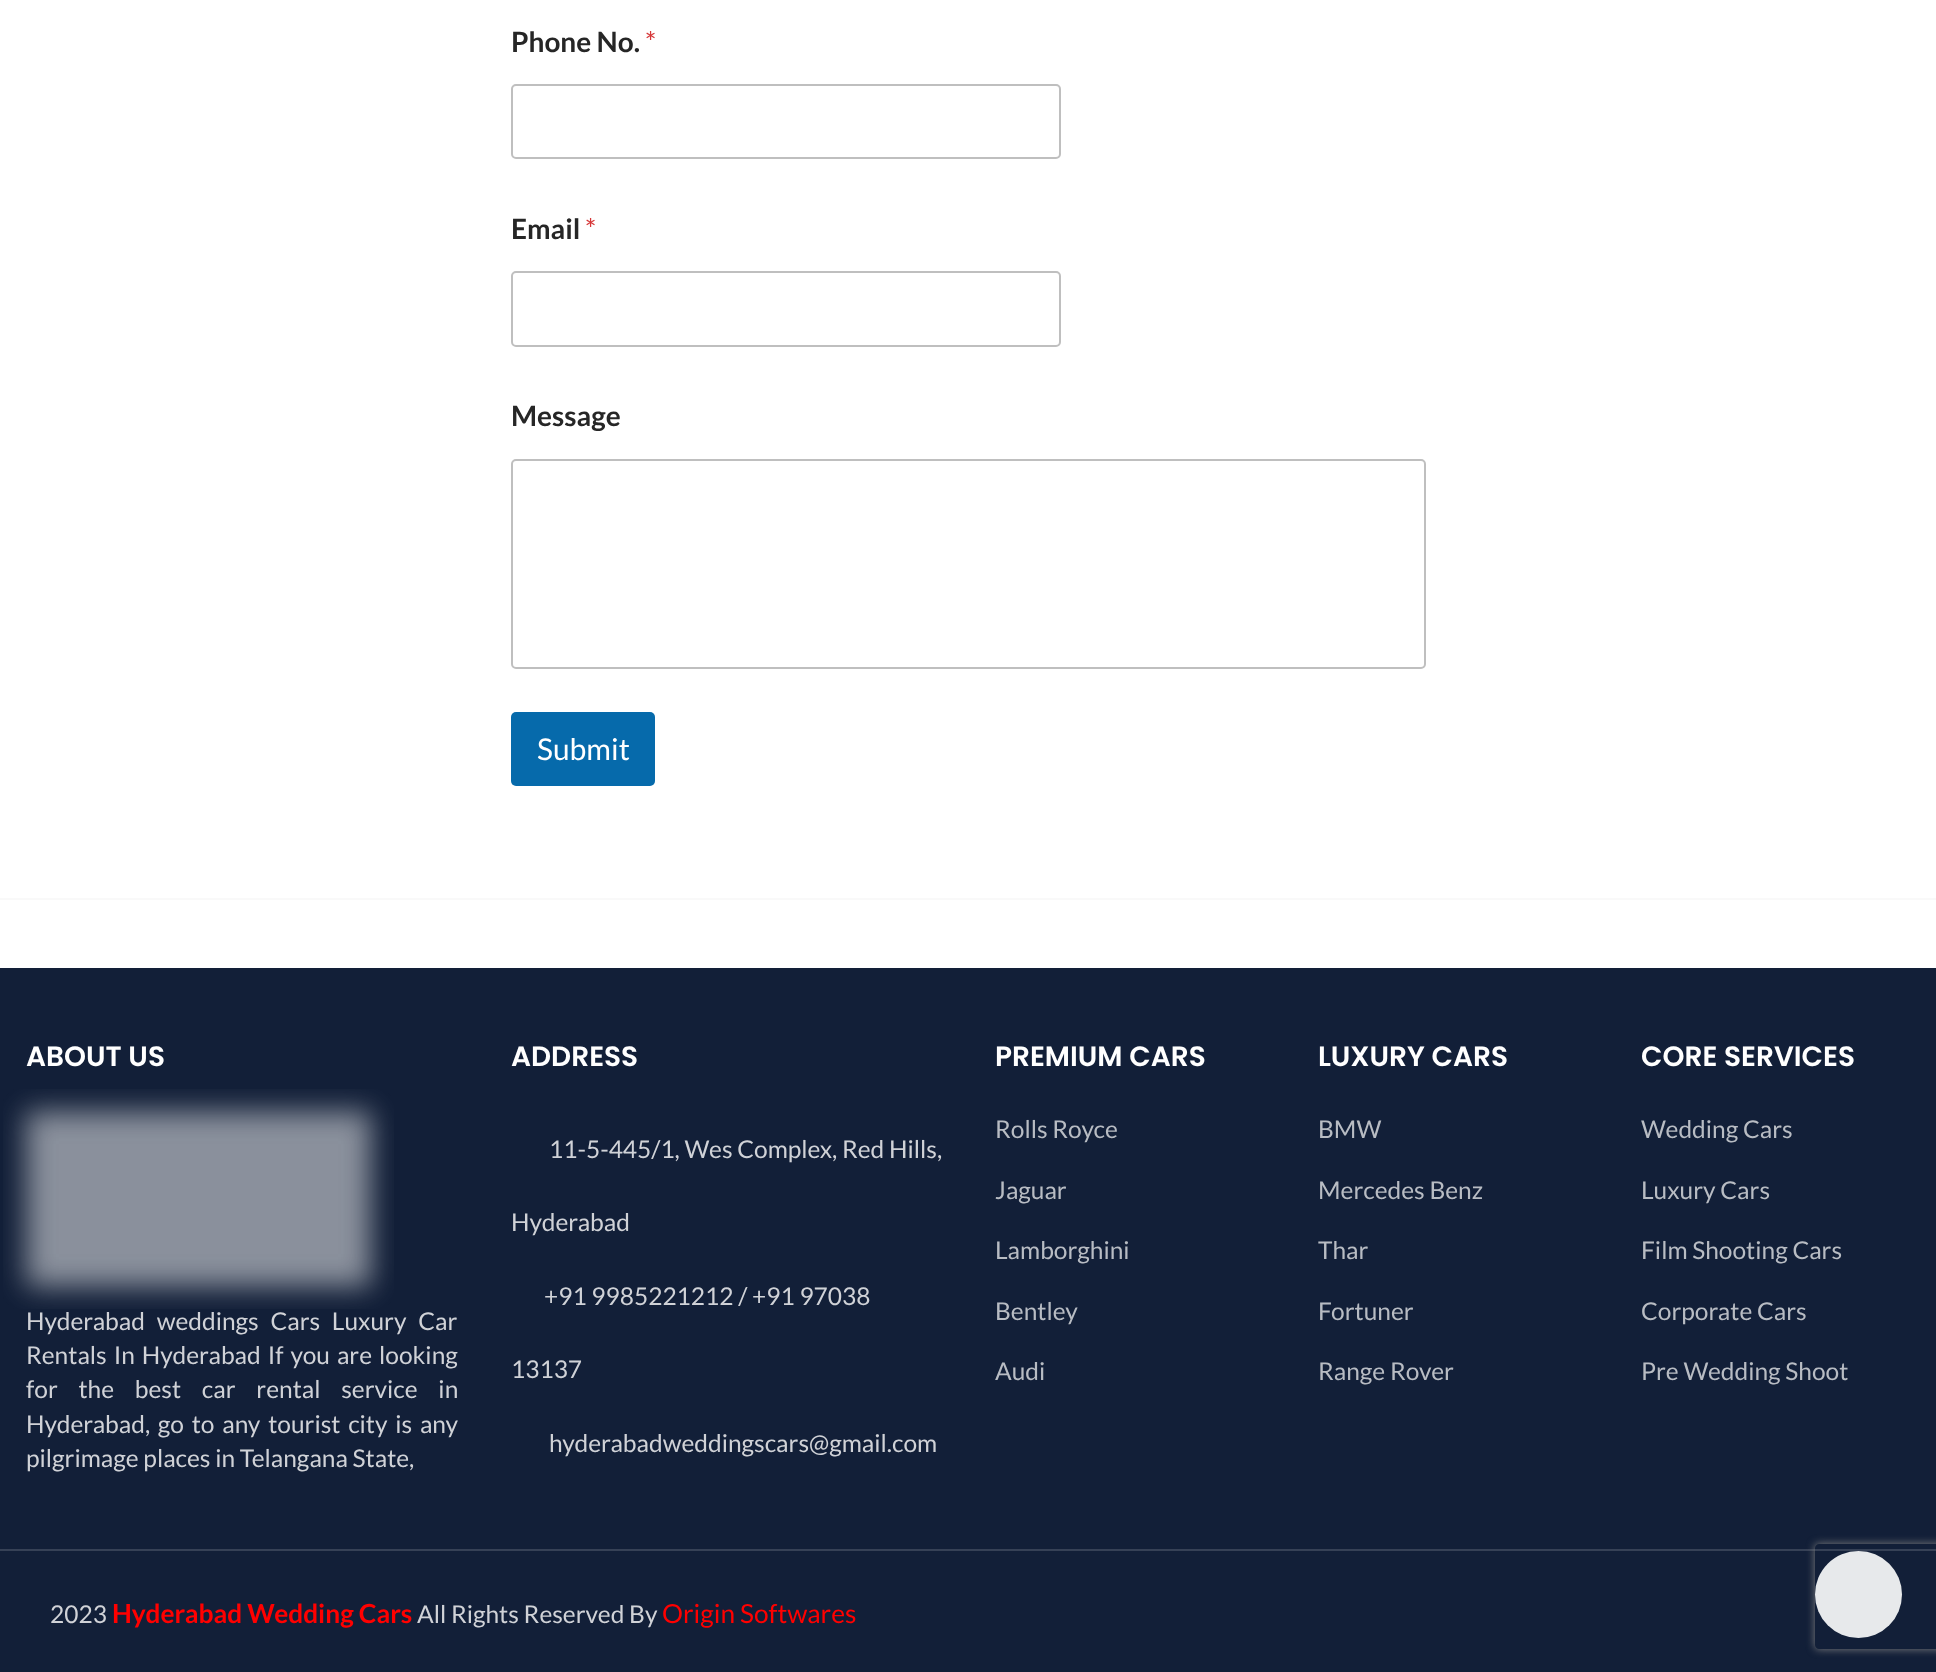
(async () => {
const canvas = document.querySelector("canvas")
canvas.width = 1936
canvas.height = 1672
const c = canvas.getContext("2d")
c.miterLimit = 4
c.fontKerning = "normal"
function T(s,x,y){c.fillText(s,x,y)}
function R(x,y,w,h){c.fillRect(x,y,w,h)}
function Q(x,y,w,h,r){c.beginPath();c.roundRect(x,y,w,h,r);c.fill()}
async function I(src,x,y,w,h){const img=new Image();img.src=src;await img.decode();c.drawImage(img,x,y,w,h)}
let path
c.fillStyle="#fff"
R(0,0,1936,1672)
c.font="bold 28px Lato"
c.fillStyle="#262626"
T("Phone No.",511,52)
c.font="28px Lato"
c.fillStyle="#d63637"
T("*",645,52)
c.beginPath()
c.roundRect(512,85,548,73,4)
c.strokeStyle="#bfbfbf"
c.lineWidth=2
c.stroke()
c.font="bold 28px Lato"
c.fillStyle="#262626"
T("Email",511,239)
c.font="28px Lato"
c.fillStyle="#d63637"
T("*",585,239)
c.beginPath()
c.roundRect(512,272,548,74,4)
c.stroke()
c.font="bold 28px Lato"
c.fillStyle="#262626"
T("Message",511,426)
c.beginPath()
c.roundRect(512,460,913,208,4)
c.stroke()
c.fillStyle="#066aab"
Q(511,712,144,74,5)
c.font="30px Lato"
c.fillStyle="#fff"
T("Submit",537,760)
c.fillStyle="#f9f9f9"
R(0,898,1936,2)
c.fillStyle="#121f38"
R(0,968,1936,704)
c.font="600 28px Poppins"
c.fillStyle="#fff"
T("ABOUT US",26,1066)
await I("1.png",3,1089,391,220)
c.wordSpacing="7px"
c.font="24.5px Lato"
c.fillStyle="#d0d2d7"
T("Hyderabad weddings Cars Luxury Car",26,1330)
c.wordSpacing="2.25px"
T("Rentals In Hyderabad If you are looking",26,1364)
c.wordSpacing="16px"
T("for the best car rental service in",26,1398)
c.wordSpacing="3px"
T("Hyderabad, go to any tourist city is any",26,1433)
c.wordSpacing="0px"
T("pilgrimage places in Telangana State,",26,1467)
c.font="600 28px Poppins"
c.fillStyle="#fff"
T("ADDRESS",511,1066)
c.font="24.5px Lato"
c.fillStyle="#d0d2d7"
T("11-5-445/1, Wes Complex, Red Hills,",549,1158)
T("Hyderabad",511,1231)
T("+91 9985221212 / +91 97038",544,1305)
T("13137",511,1378)
T("hyderabadweddingscars@gmail.com",549,1452)
c.font="600 28px Poppins"
c.fillStyle="#fff"
T("PREMIUM CARS",995,1066)
c.font="24.5px Lato"
c.fillStyle="#b8bcc3"
T("Rolls Royce",995,1138)
T("Jaguar",995,1199)
T("Lamborghini",995,1259)
T("Bentley",995,1320)
T("Audi",995,1380)
c.font="600 28px Poppins"
c.fillStyle="#fff"
T("LUXURY CARS",1318,1066)
c.font="24.5px Lato"
c.fillStyle="#b8bcc3"
T("BMW",1318,1138)
T("Mercedes Benz",1318,1199)
T("Thar",1318,1259)
T("Fortuner",1318,1320)
T("Range Rover",1318,1380)
c.font="600 28px Poppins"
c.fillStyle="#fff"
T("CORE SERVICES",1641,1066)
c.font="24.5px Lato"
c.fillStyle="#b8bcc3"
T("Wedding Cars",1641,1138)
T("Luxury Cars",1641,1199)
T("Film Shooting Cars",1641,1259)
T("Corporate Cars",1641,1320)
T("Pre Wedding Shoot",1641,1380)
c.fillStyle="#364156"
R(0,1549,1936,2)
c.fillStyle="#d0d2d7"
T("2023",50,1623)
c.font="bold 26.25px Lato"
c.fillStyle="#f00"
T("Hyderabad Wedding Cars",112,1623)
c.font="24.5px Lato"
c.fillStyle="#d0d2d7"
T("All Rights Reserved By",417,1623)
c.font="26.25px Lato"
c.fillStyle="#f00"
T("Origin Softwares",662,1623)
c.save()
path = new Path2D("M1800 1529h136v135h-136zm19 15h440c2 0 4 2 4 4v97c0 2-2 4-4 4h-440c-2 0-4-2-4-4v-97c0-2 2-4 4-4z")
c.clip(path,"evenodd")
c.fillStyle="#808080"
c.filter="blur(4.5px)"
c.beginPath()
c.roundRect(1815,1544,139,105,4)
c.fill()
c.filter="none"
c.restore()
c.fillStyle="#e7e9eb"
c.beginPath()
c.arc(1858.5,1594.5,43.5,0,7)
c.fill()
})()
